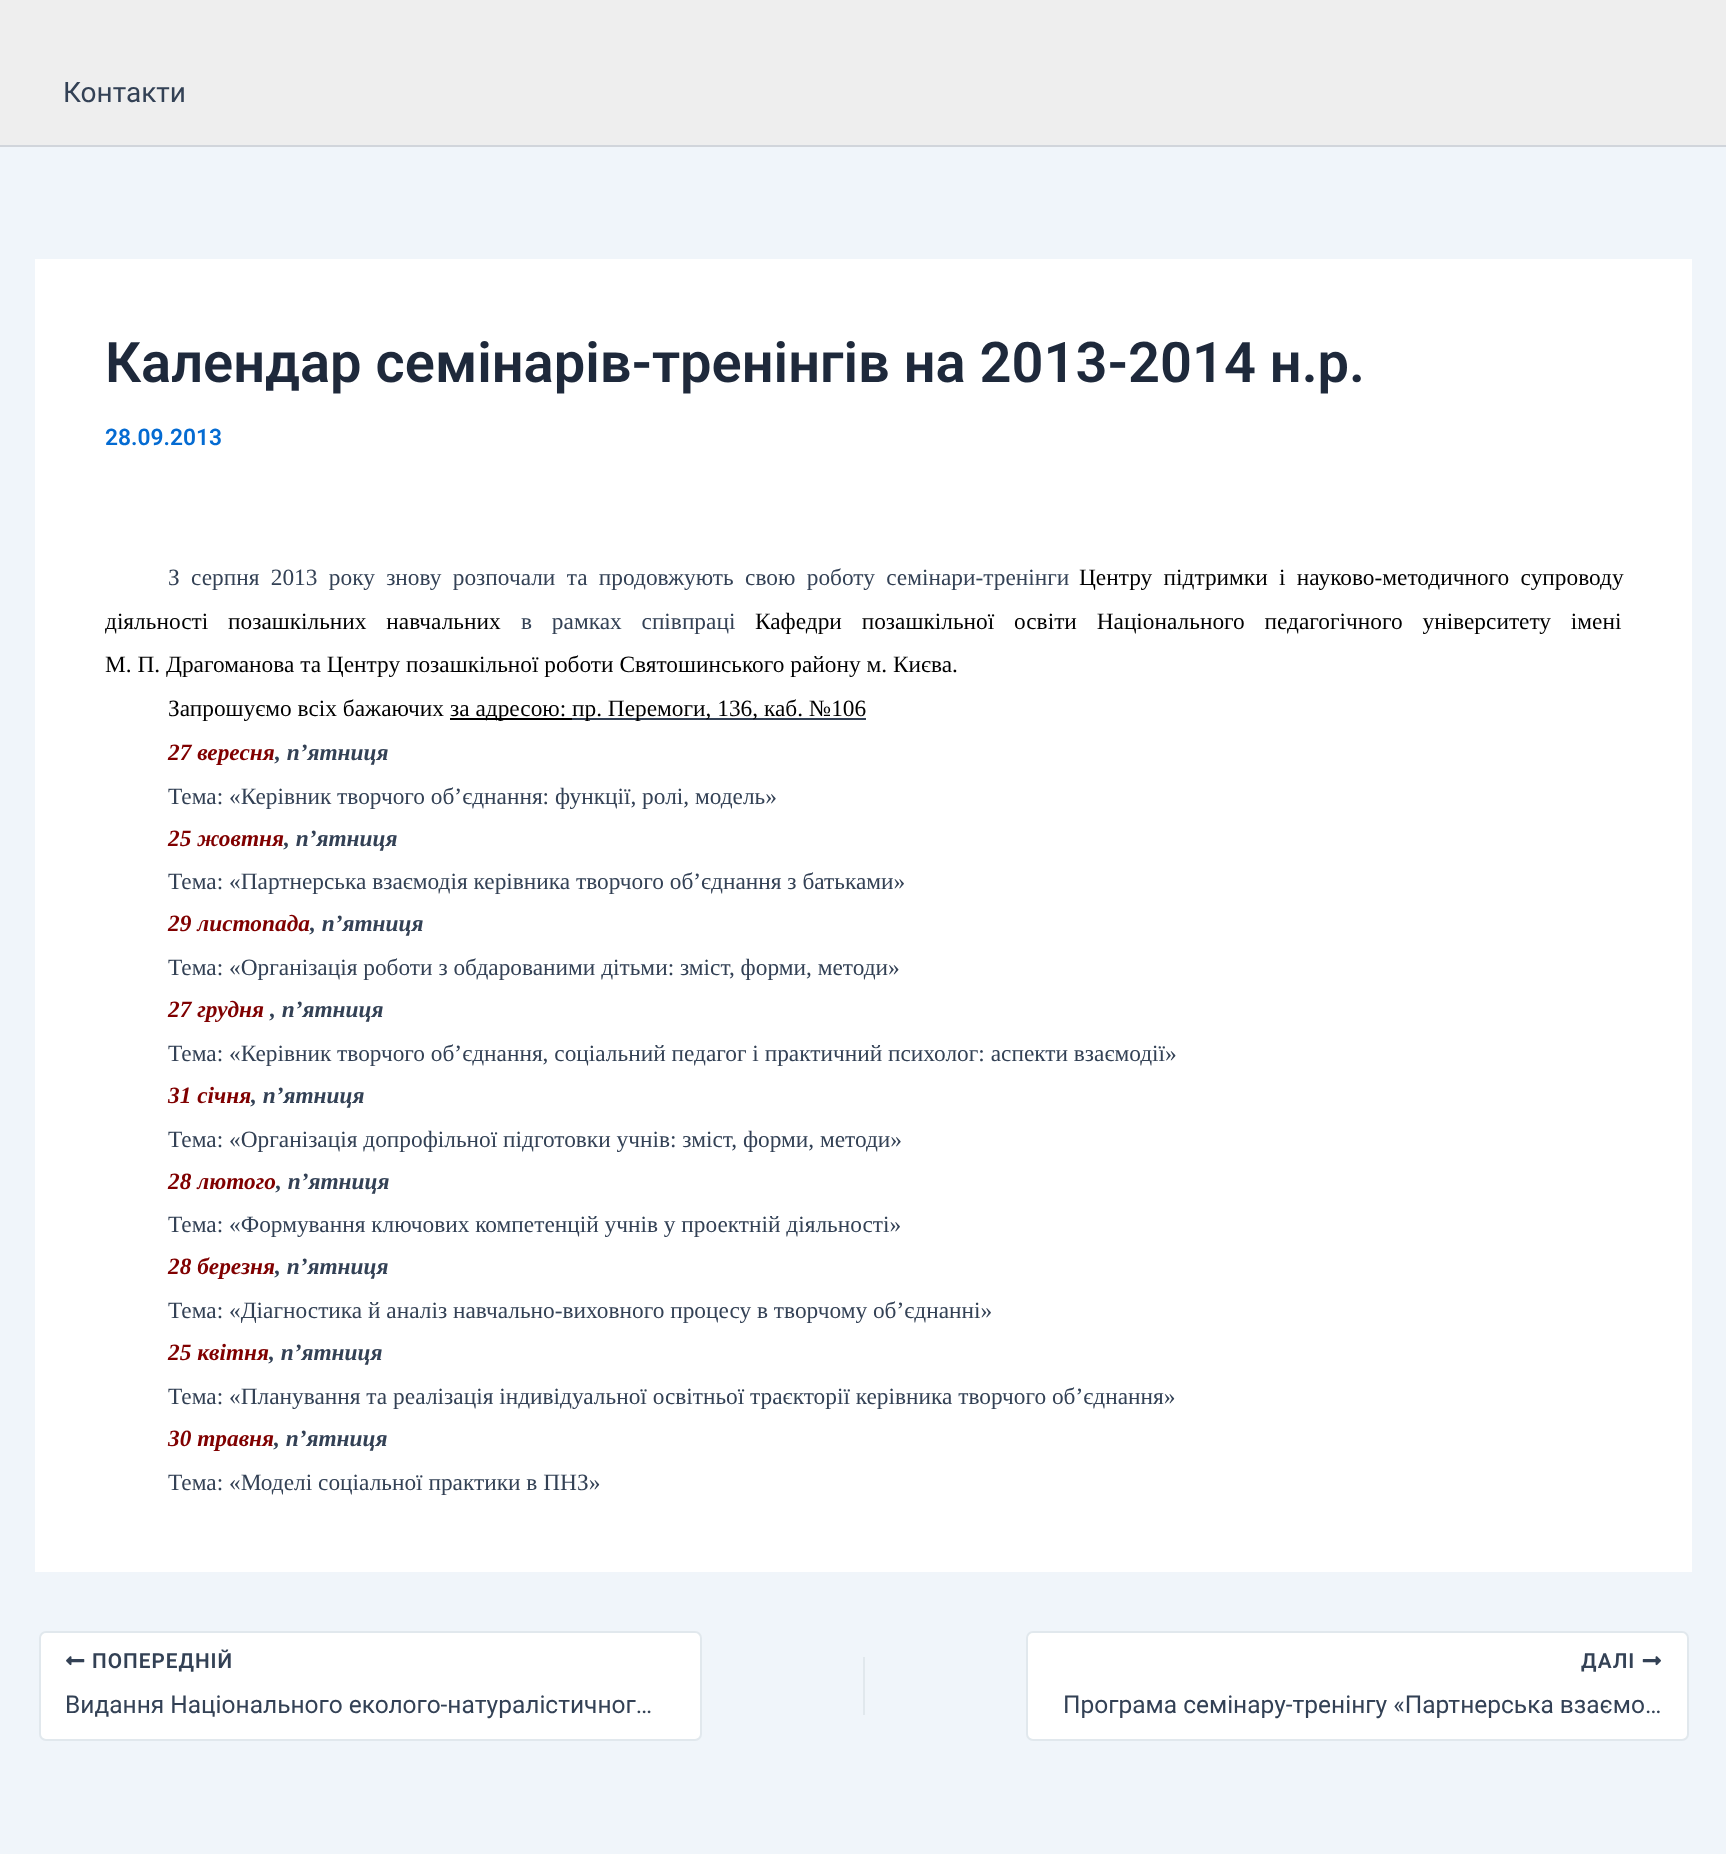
(async () => {
const canvas = document.querySelector("canvas")
canvas.width = 1726
canvas.height = 1854
const c = canvas.getContext("2d")
c.miterLimit = 4
c.fontKerning = "normal"
function T(s,x,y){c.fillText(s,x,y)}
function R(x,y,w,h){c.fillRect(x,y,w,h)}
async function I(src,x,y,w,h){const img=new Image();img.src=src;await img.decode();c.drawImage(img,x,y,w,h)}
c.fillStyle="#f0f5fa"
R(0,0,1726,1854)
c.fillStyle="#eee"
R(0,0,1726,145)
c.fillStyle="#d1d5db"
R(0,145,1726,2)
c.font="28px Roboto"
c.fillStyle="#334155"
T("Контакти",63,102)
c.fillStyle="#fff"
R(35,259,1657,1313)
c.font="600 56px Roboto"
c.fillStyle="#1e293b"
T("Календар семінарів-тренінгів на 2013-2014 н.р.",105,382)
c.font="600 22.75px Roboto"
c.fillStyle="#046bd2"
T("28.09.2013",105,445)
c.wordSpacing="5.5px"
c.font="23.35px Liberation Serif"
c.fillStyle="#334155"
T("З серпня 2013 року знову розпочали та продовжують свою роботу семінари-тренінги",168,585)
c.fillStyle="#000"
T("Центру підтримки і науково-методичного супроводу",1079,585)
c.wordSpacing="14px"
T("діяльності позашкільних навчальних",105,629)
c.fillStyle="#334155"
T("в рамках співпраці",521,629)
c.fillStyle="#000"
T("Кафедри позашкільної освіти Національного педагогічного університету імені",755,629)
c.wordSpacing="0px"
T("М. П. Драгоманова та Центру позашкільної роботи Святошинського району м. Києва.",105,672)
T("Запрошуємо всіх бажаючих",168,716)
R(450,718,122,2)
T("за адресою:",450,716)
c.fillStyle="#334155"
R(572,718,294,2)
c.fillStyle="#000"
T("пр. Перемоги, 136, каб. №106",572,716)
c.font="italic bold 23.35px Liberation Serif"
c.fillStyle="#800000"
T("27 вересня",168,760)
c.fillStyle="#334155"
T(", п’ятниця",275,760)
c.font="23.35px Liberation Serif"
T("Тема: «Керівник творчого об’єднання: функції, ролі, модель»",168,804)
c.font="italic bold 23.35px Liberation Serif"
c.fillStyle="#800000"
T("25 жовтня",168,846)
c.fillStyle="#334155"
T(", п’ятниця",284,846)
c.font="23.35px Liberation Serif"
T("Тема: «Партнерська взаємодія керівника творчого об’єднання з батьками»",168,889)
c.font="italic bold 23.35px Liberation Serif"
c.fillStyle="#800000"
T("29 листопада",168,931)
c.fillStyle="#334155"
T(", п’ятниця",310,931)
c.font="23.35px Liberation Serif"
T("Тема: «Організація роботи з обдарованими дітьми: зміст, форми, методи»",168,975)
c.font="italic bold 23.35px Liberation Serif"
c.fillStyle="#800000"
T("27 грудня",168,1017)
c.fillStyle="#334155"
T(", п’ятниця",270,1017)
c.font="23.35px Liberation Serif"
T("Тема: «Керівник творчого об’єднання, соціальний педагог і практичний психолог: аспекти взаємодії»",168,1061)
c.font="italic bold 23.35px Liberation Serif"
c.fillStyle="#800000"
T("31 січня",168,1103)
c.fillStyle="#334155"
T(", п’ятниця",251,1103)
c.font="23.35px Liberation Serif"
T("Тема: «Організація допрофільної підготовки учнів: зміст, форми, методи»",168,1147)
c.font="italic bold 23.35px Liberation Serif"
c.fillStyle="#800000"
T("28 лютого",168,1189)
c.fillStyle="#334155"
T(", п’ятниця",276,1189)
c.font="23.35px Liberation Serif"
T("Тема: «Формування ключових компетенцій учнів у проектній діяльності»",168,1232)
c.font="italic bold 23.35px Liberation Serif"
c.fillStyle="#800000"
T("28 березня",168,1274)
c.fillStyle="#334155"
T(", п’ятниця",275,1274)
c.font="23.35px Liberation Serif"
T("Тема: «Діагностика й аналіз навчально-виховного процесу в творчому об’єднанні»",168,1318)
c.font="italic bold 23.35px Liberation Serif"
c.fillStyle="#800000"
T("25 квітня",168,1360)
c.fillStyle="#334155"
T(", п’ятниця",269,1360)
c.font="23.35px Liberation Serif"
T("Тема: «Планування та реалізація індивідуальної освітньої траєкторії керівника творчого об’єднання»",168,1404)
c.font="italic bold 23.35px Liberation Serif"
c.fillStyle="#800000"
T("30 травня",168,1446)
c.fillStyle="#334155"
T(", п’ятниця",274,1446)
c.font="23.35px Liberation Serif"
T("Тема: «Моделі соціальної практики в ПНЗ»",168,1490)
c.fillStyle="#fff"
c.beginPath()
c.roundRect(40,1632,661,108,6)
c.fill()
c.strokeStyle="#e1e8ed"
c.lineWidth=2
c.stroke()
await I("1.png",66,1656,19,10)
c.letterSpacing="1px"
c.font="600 20.75px Roboto"
c.fillStyle="#334155"
T("ПОПЕРЕДНІЙ",92,1668)
c.letterSpacing="0px"
c.font="24.5px Roboto"
T("Видання Національного еколого-натуралістичног…",65,1713)
c.fillStyle="#e1e8ed"
R(863,1657,2,58)
c.fillStyle="#fff"
c.beginPath()
c.roundRect(1027,1632,661,108,6)
c.fill()
c.stroke()
c.letterSpacing="1px"
c.font="600 20.75px Roboto"
c.fillStyle="#334155"
T("ДАЛІ",1581,1668)
await I("2.png",1642,1656,19,10)
c.letterSpacing="0px"
c.font="24.5px Roboto"
T("Програма семінару-тренінгу «Партнерська взаємо…",1063,1713)
})()
